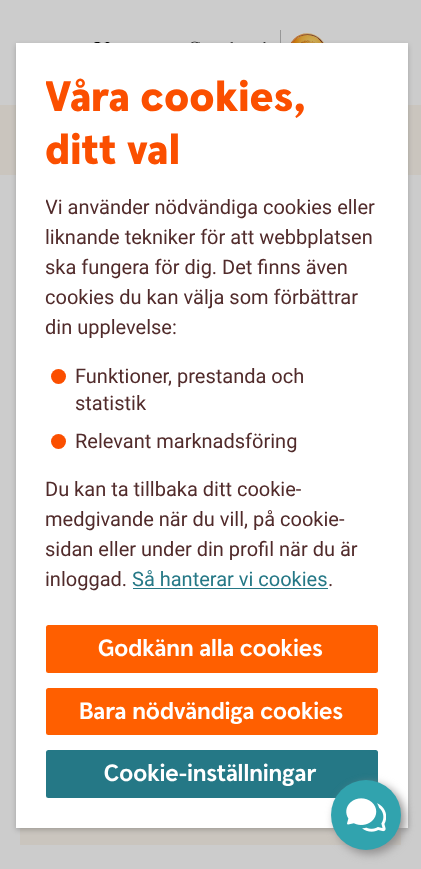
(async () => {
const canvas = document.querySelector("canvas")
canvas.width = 421
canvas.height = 869
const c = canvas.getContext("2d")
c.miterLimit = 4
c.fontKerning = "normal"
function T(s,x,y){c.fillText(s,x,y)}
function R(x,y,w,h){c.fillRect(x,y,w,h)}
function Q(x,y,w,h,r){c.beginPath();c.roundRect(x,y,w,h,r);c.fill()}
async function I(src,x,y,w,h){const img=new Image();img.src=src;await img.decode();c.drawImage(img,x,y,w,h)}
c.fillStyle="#ccc"
R(0,0,421,869)
await I("1.png",94,30,230,13)
c.fillStyle="#cac5be"
R(0,105,421,70)
R(20,828,381,17)
c.fillStyle="#00000033"
c.filter="blur(2.5px)"
c.beginPath()
c.rect(16,45,392,785)
c.fill()
c.filter="none"
c.fillStyle="#fff"
R(16,43,392,785)
c.save()
c.beginPath()
c.rect(46,73,332,522)
c.clip()
c.font="900 42.5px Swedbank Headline"
c.fillStyle="#fb4f00"
T("Våra cookies,",45,111)
c.restore()
c.font="900 42.5px Swedbank Headline"
c.fillStyle="#fb4f00"
T("ditt val",45,164)
c.save()
c.beginPath()
c.rect(46,73,332,522)
c.clip()
c.font="20px Roboto"
c.fillStyle="#512b2b"
T("Vi använder nödvändiga cookies eller",45,214)
c.restore()
c.font="20px Roboto"
c.fillStyle="#512b2b"
T("liknande tekniker för att webbplatsen",45,244)
T("ska fungera för dig. Det finns även",45,274)
T("cookies du kan välja som förbättrar",45,304)
T("din upplevelse:",45,334)
c.fillStyle="#fb4f00"
c.beginPath()
c.arc(58.5,376.5,7.5,0,7)
c.fill()
c.fillStyle="#512b2b"
T("Funktioner, prestanda och",75,383)
T("statistik",75,410)
c.fillStyle="#fb4f00"
c.beginPath()
c.arc(58.5,441.5,7.5,0,7)
c.fill()
c.fillStyle="#512b2b"
T("Relevant marknadsföring",75,448)
T("Du kan ta tillbaka ditt cookie-",45,496)
T("medgivande när du vill, på cookie-",45,526)
T("sidan eller under din profil när du är",45,556)
T("inloggad.",45,586)
c.fillStyle="#257886"
T("Så hanterar vi cookies",132,586)
R(133,588,195,1)
c.fillStyle="#512b2b"
T(".",328,586)
c.fillStyle="#ff5f00"
Q(46,625,332,48,2.5)
c.font="bold 23.75px Swedbank Headline"
c.fillStyle="#fff"
T("Godkänn alla cookies",98,656)
c.fillStyle="#ff5f00"
Q(46,688,332,47,2.5)
c.fillStyle="#fff"
T("Bara nödvändiga cookies",79,719)
c.fillStyle="#257886"
Q(46,750,332,48,2.5)
c.fillStyle="#fff"
T("Cookie-inställningar",104,781)
c.fillStyle="#908e8e"
c.filter="blur(5px)"
c.beginPath()
c.roundRect(335,784,70,70,35)
c.fill()
c.filter="none"
c.fillStyle="#31a3ae"
c.beginPath()
c.arc(366,815,35,0,7)
c.fill()
await I("2.png",346,798,40,34)
})()
